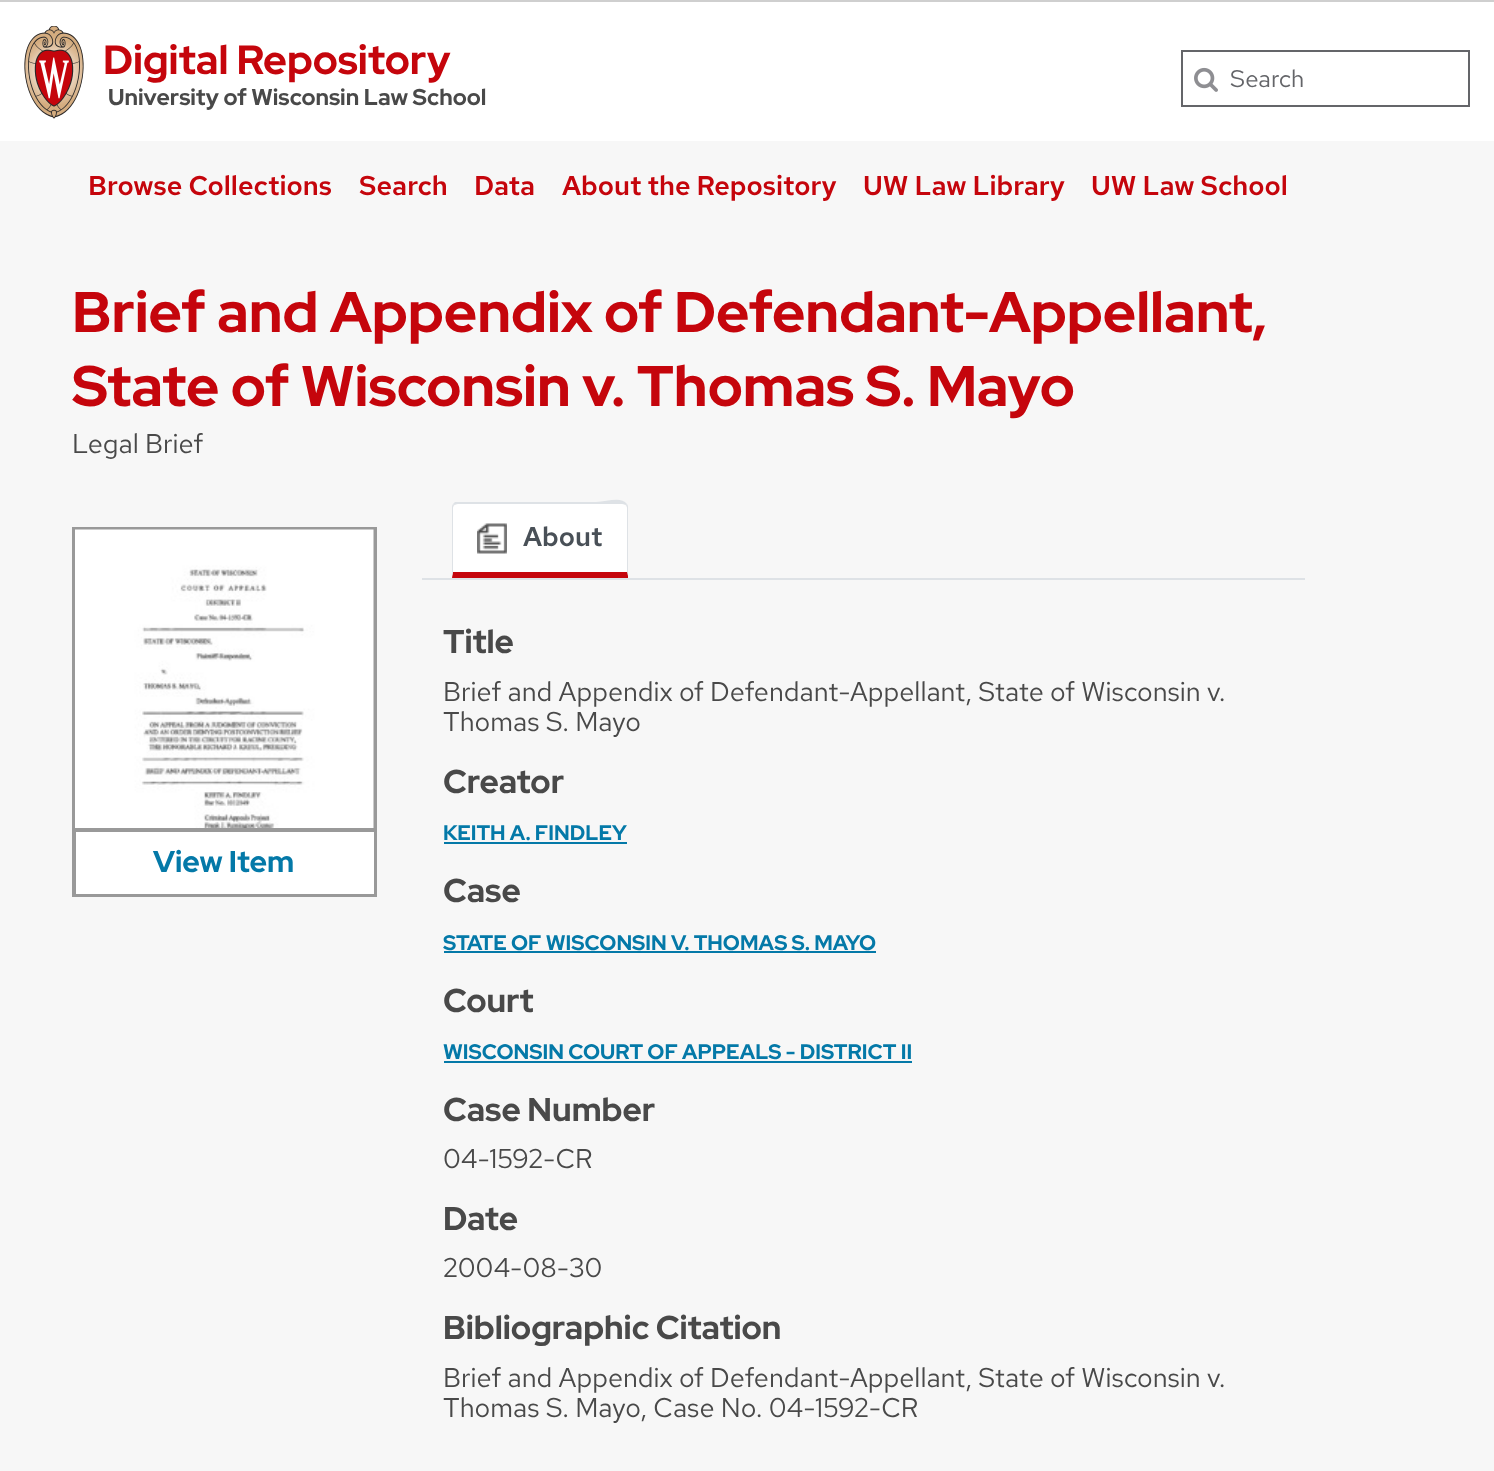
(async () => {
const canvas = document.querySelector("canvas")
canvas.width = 1494
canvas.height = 1471
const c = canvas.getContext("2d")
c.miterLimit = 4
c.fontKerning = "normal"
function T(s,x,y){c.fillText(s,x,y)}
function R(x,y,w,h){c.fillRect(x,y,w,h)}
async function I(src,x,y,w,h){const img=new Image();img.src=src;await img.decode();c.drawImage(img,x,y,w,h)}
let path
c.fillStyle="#f7f7f7"
R(0,0,1494,1471)
c.fillStyle="#cfcfcf"
R(0,0,1494,2)
c.fillStyle="#fff"
R(0,2,1494,139)
await I("1.png",24,26,60,93)
c.font="800 40.75px Red Hat Display"
c.fillStyle="#c5050c"
T("Digital Repository",103,74)
c.font="bold 22.75px Red Hat Display"
c.fillStyle="#494949"
T("University of Wisconsin Law School",108,105)
await I("2.png",1194,67,24,25)
c.strokeStyle="#646569"
c.lineWidth=2
c.strokeRect(1182,51,287,55)
c.font="24px Red Hat Text"
c.fillStyle="#646569"
T("Search",1230,87)
c.font="600 27px Red Hat Text"
c.fillStyle="#c5050c"
T("Browse Collections",88,195)
T("Search",359,195)
T("Data",474,195)
T("About the Repository",562,195)
T("UW Law Library",863,195)
T("UW Law School",1091,195)
c.font="800 57px Red Hat Display"
T("Brief and Appendix of Defendant-Appellant,",72,332)
T("State of Wisconsin v. Thomas S. Mayo",72,406)
c.font="27px Red Hat Text"
c.fillStyle="#494949"
T("Legal Brief",72,453)
c.fillStyle="#fff"
R(76,832,298,62)
c.strokeStyle="#999"
c.strokeRect(73,528,303,368)
c.strokeRect(75,529,299,300)
await I("3.png",75,529,299,299)
c.fillStyle="#999"
R(374,830,1,66)
R(74,894,301,1)
R(74,830,2,66)
R(75,830,299,2)
c.font="800 30px Red Hat Display"
c.fillStyle="#0479a8"
T("View Item",153,872)
c.fillStyle="#dee2e6"
R(422,578,883,2)
c.fillStyle="#fff"
c.beginPath()
c.roundRect(453,504,174,68,[5,5,0,0])
c.fill()
c.fillStyle="#dee2e6"
path = new Path2D("M458 504c-2 0-3 1-4 1l-1-1l2-2h141c11 0 25-6 31 2l-1 1c-1 0-2-1-4-1z")
c.fill(path)
path = new Path2D("M627 504c1 1 1 3 1 4v68l-1-4v-65l-1-2z")
c.fill(path)
c.fillStyle="#c5050c"
path = new Path2D("M452 578l1-6h174l1 4v2z")
c.fill(path)
c.fillStyle="#dee2e6"
path = new Path2D("M452 576v-68c0-1 0-3 1-4l1 1l-1 2v65z")
c.fill(path)
await I("4.png",477,523,30,31)
c.font="600 27px Red Hat Text"
c.fillStyle="#495057"
T("About",523,546)
c.font="800 33px Red Hat Display"
c.fillStyle="#494949"
T("Title",443,653)
c.font="27px Red Hat Text"
T("Brief and Appendix of Defendant-Appellant, State of Wisconsin v.",443,701)
T("Thomas S. Mayo",443,731)
c.font="800 33px Red Hat Display"
T("Creator",443,793)
c.font="800 21px Red Hat Display"
c.fillStyle="#0479a8"
T("KEITH A. FINDLEY",443,840)
R(444,842,183,2)
c.font="800 33px Red Hat Display"
c.fillStyle="#494949"
T("Case",443,902)
c.font="800 21px Red Hat Display"
c.fillStyle="#0479a8"
T("STATE OF WISCONSIN V. THOMAS S. MAYO",443,950)
R(444,951,432,2)
c.font="800 33px Red Hat Display"
c.fillStyle="#494949"
T("Court",443,1012)
c.font="800 21px Red Hat Display"
c.fillStyle="#0479a8"
T("WISCONSIN COURT OF APPEALS - DISTRICT II",443,1059)
R(444,1061,468,2)
c.font="800 33px Red Hat Display"
c.fillStyle="#494949"
T("Case Number",443,1121)
c.font="27px Red Hat Text"
T("04-1592-CR",443,1168)
c.font="800 33px Red Hat Display"
T("Date",443,1230)
c.font="27px Red Hat Text"
T("2004-08-30",443,1277)
c.font="800 33px Red Hat Display"
T("Bibliographic Citation",443,1339)
c.font="27px Red Hat Text"
T("Brief and Appendix of Defendant-Appellant, State of Wisconsin v.",443,1387)
T("Thomas S. Mayo, Case No. 04-1592-CR",443,1417)
})()
